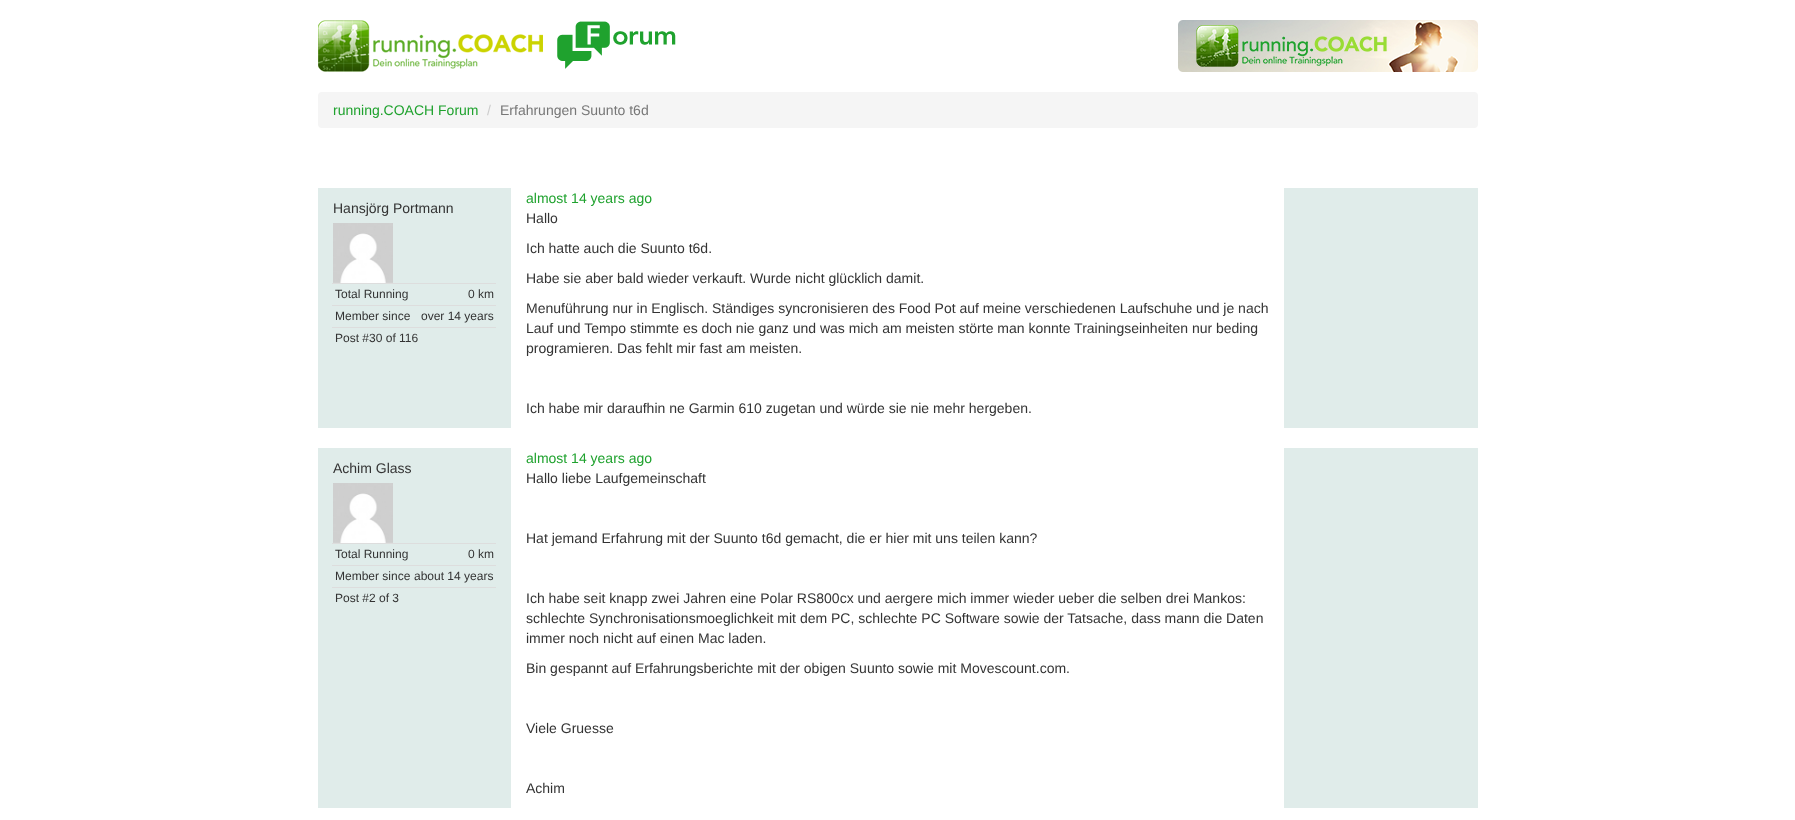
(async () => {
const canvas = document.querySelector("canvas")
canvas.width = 1795
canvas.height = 820
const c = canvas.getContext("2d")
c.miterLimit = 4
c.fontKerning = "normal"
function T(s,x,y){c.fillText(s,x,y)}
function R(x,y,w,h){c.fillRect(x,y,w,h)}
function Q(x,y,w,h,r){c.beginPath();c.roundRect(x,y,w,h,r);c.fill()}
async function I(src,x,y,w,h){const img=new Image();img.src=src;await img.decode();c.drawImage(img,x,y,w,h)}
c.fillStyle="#fff"
R(0,0,1795,820)
await I("1.png",318,20,358,52)
await I("2.png",1178,20,300,52)
c.fillStyle="#f5f5f5"
Q(318,92,1160,36,4)
c.font="14px Liberation Sans"
c.fillStyle="#1fa22e"
T("running.COACH Forum",333,115)
c.fillStyle="#ccc"
T("/",487,115)
c.fillStyle="#777"
T("Erfahrungen Suunto t6d",500,115)
c.fillStyle="#e0ecea"
R(318,188,1160,240)
c.fillStyle="#333"
T("Hansjörg Portmann",333,213)
await I("3.png",333,223,60,60)
c.font="12px Liberation Sans"
T("Total Running",335,298)
c.fillStyle="#ddd"
R(332,283,164,1)
c.fillStyle="#333"
T("0 km",468,298)
T("Member since",335,320)
c.fillStyle="#ddd"
R(332,305,164,1)
c.fillStyle="#333"
T("over 14 years",421,320)
c.fillStyle="#ddd"
R(332,327,164,1)
c.fillStyle="#333"
T("Post #30 of 116",335,342)
c.fillStyle="#fff"
R(511,188,773,240)
c.font="14px Liberation Sans"
c.fillStyle="#1fa22e"
T("almost 14 years ago",526,203)
c.fillStyle="#333"
T("Hallo",526,223)
T("Ich hatte auch die Suunto t6d.",526,253)
T("Habe sie aber bald wieder verkauft. Wurde nicht glücklich damit.",526,283)
T("Menuführung nur in Englisch. Ständiges syncronisieren des Food Pot auf meine verschiedenen Laufschuhe und je nach",526,313)
T("Lauf und Tempo stimmte es doch nie ganz und was mich am meisten störte man konnte Trainingseinheiten nur beding",526,333)
T("programieren. Das fehlt mir fast am meisten.",526,353)
T("Ich habe mir daraufhin ne Garmin 610 zugetan und würde sie nie mehr hergeben.",526,413)
c.fillStyle="#e0ecea"
R(318,448,1160,360)
c.fillStyle="#333"
T("Achim Glass",333,473)
await I("3.png",333,483,60,60)
c.font="12px Liberation Sans"
T("Total Running",335,558)
c.fillStyle="#ddd"
R(332,543,164,1)
c.fillStyle="#333"
T("0 km",468,558)
T("Member since",335,580)
c.fillStyle="#ddd"
R(332,565,164,1)
c.fillStyle="#333"
T("about 14 years",414,580)
c.fillStyle="#ddd"
R(332,587,164,1)
c.fillStyle="#333"
T("Post #2 of 3",335,602)
c.fillStyle="#fff"
R(511,448,773,360)
c.font="14px Liberation Sans"
c.fillStyle="#1fa22e"
T("almost 14 years ago",526,463)
c.fillStyle="#333"
T("Hallo liebe Laufgemeinschaft",526,483)
T("Hat jemand Erfahrung mit der Suunto t6d gemacht, die er hier mit uns teilen kann?",526,543)
T("Ich habe seit knapp zwei Jahren eine Polar RS800cx und aergere mich immer wieder ueber die selben drei Mankos:",526,603)
T("schlechte Synchronisationsmoeglichkeit mit dem PC, schlechte PC Software sowie der Tatsache, dass mann die Daten",526,623)
T("immer noch nicht auf einen Mac laden.",526,643)
T("Bin gespannt auf Erfahrungsberichte mit der obigen Suunto sowie mit Movescount.com.",526,673)
T("Viele Gruesse",526,733)
T("Achim",526,793)
})()
